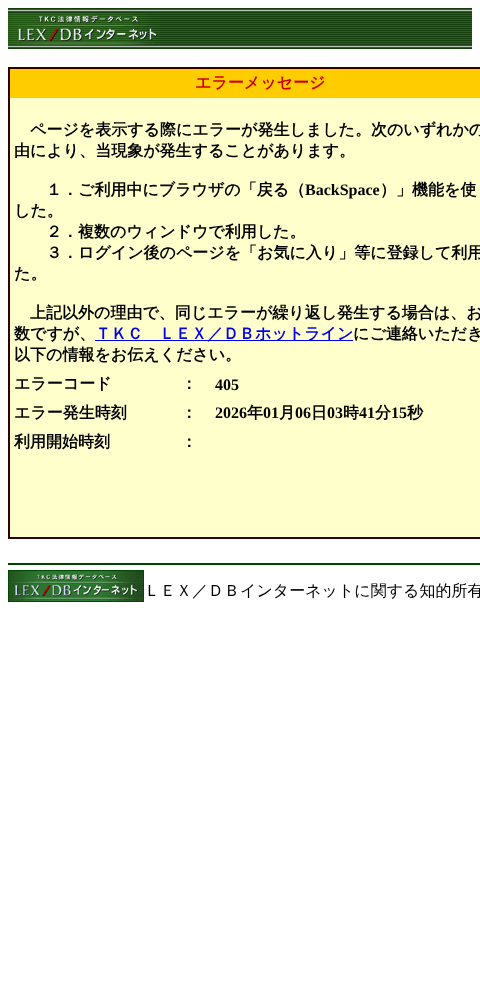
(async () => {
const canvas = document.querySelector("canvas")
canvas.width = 480
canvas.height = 986
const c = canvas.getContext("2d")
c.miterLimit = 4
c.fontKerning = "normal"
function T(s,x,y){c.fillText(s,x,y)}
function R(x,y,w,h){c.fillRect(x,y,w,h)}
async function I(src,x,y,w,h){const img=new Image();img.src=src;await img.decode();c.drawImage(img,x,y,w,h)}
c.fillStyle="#fff"
R(0,0,480,986)
await I("1.png",8,8,464,41)
await I("2.png",8,10,152,37)
c.fillStyle="#300"
R(8,67,472,472)
c.fillStyle="#fc0"
R(10,69,470,29)
c.font="bold 16px WenQuanYi Zen Hei"
c.fillStyle="#c00"
T("エラーメッセージ",195,88)
c.fillStyle="#ffc"
R(10,98,470,439)
c.fillStyle="#000"
T("ページを表示する際にエラーが発生しました。次のいずれかの",30,135)
T("由により、当現象が発生することがあります。",14,156)
T("１．ご利用中にブラウザの「戻る（",46,195)
c.font="bold 16px Liberation Serif"
T("BackSpace",305,195)
c.font="bold 16px WenQuanYi Zen Hei"
T("）」機能を使",380,195)
T("した。",14,216)
T("２．複数のウィンドウで利用した。",46,237)
T("３．ログイン後のページを「お気に入り」等に登録して利用",46,258)
T("た。",14,279)
T("上記以外の理由で、同じエラーが繰り返し発生する場合は、お",30,318)
T("数ですが、",14,339)
c.fillStyle="#00e"
R(95,340,258,1)
T("ＴＫＣ　ＬＥＸ／ＤＢホットライン",95,339)
c.fillStyle="#000"
T("にご連絡いただき",353,339)
T("以下の情報をお伝えください。",14,360)
T("エラーコード",14,389)
T("：",181,389)
c.font="bold 16px Liberation Serif"
T("405",215,390)
c.font="bold 16px WenQuanYi Zen Hei"
T("エラー発生時刻",14,418)
T("：",181,418)
c.font="bold 16px Liberation Serif"
T("2026",215,418)
c.font="bold 16px WenQuanYi Zen Hei"
T("年",247,418)
c.font="bold 16px Liberation Serif"
T("01",263,418)
c.font="bold 16px WenQuanYi Zen Hei"
T("月",279,418)
c.font="bold 16px Liberation Serif"
T("06",295,418)
c.font="bold 16px WenQuanYi Zen Hei"
T("日",311,418)
c.font="bold 16px Liberation Serif"
T("03",327,418)
c.font="bold 16px WenQuanYi Zen Hei"
T("時",343,418)
c.font="bold 16px Liberation Serif"
T("41",359,418)
c.font="bold 16px WenQuanYi Zen Hei"
T("分",375,418)
c.font="bold 16px Liberation Serif"
T("15",391,418)
c.font="bold 16px WenQuanYi Zen Hei"
T("秒",407,418)
T("利用開始時刻",14,447)
T("：",181,447)
c.fillStyle="#040"
R(8,563,472,2)
await I("3.png",8,570,136,32)
c.font="500 16px WenQuanYi Zen Hei"
c.fillStyle="#000"
T("ＬＥＸ／ＤＢインターネットに関する知的所有",144,596)
})()
